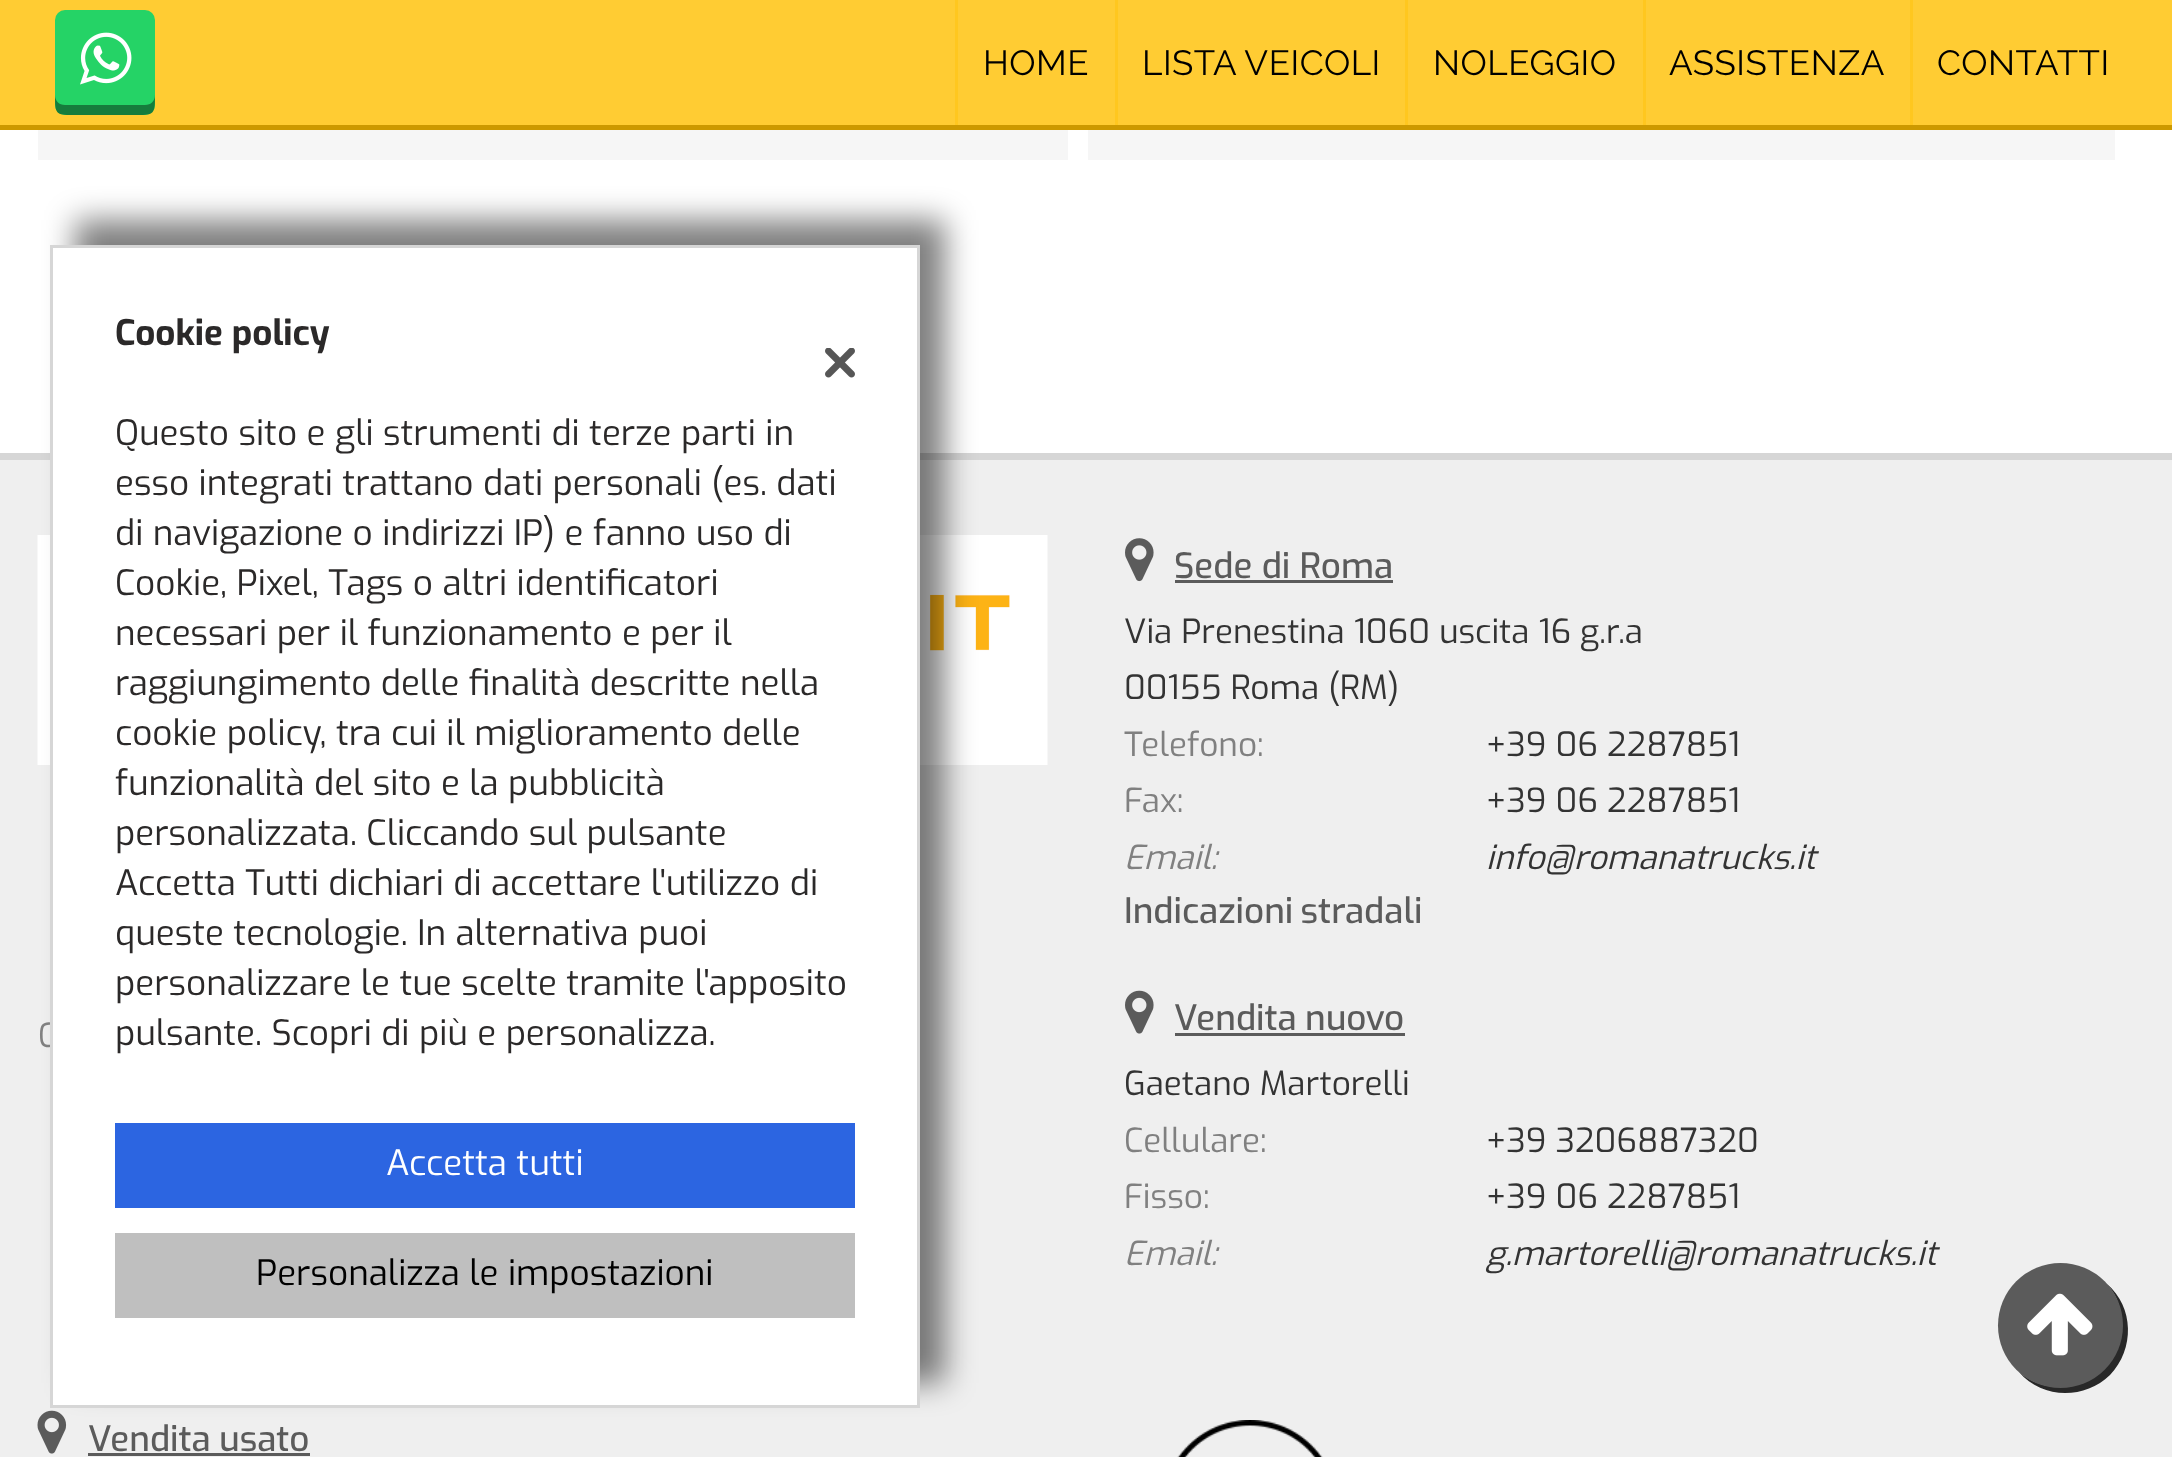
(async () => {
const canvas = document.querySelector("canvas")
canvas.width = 2172
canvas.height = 1457
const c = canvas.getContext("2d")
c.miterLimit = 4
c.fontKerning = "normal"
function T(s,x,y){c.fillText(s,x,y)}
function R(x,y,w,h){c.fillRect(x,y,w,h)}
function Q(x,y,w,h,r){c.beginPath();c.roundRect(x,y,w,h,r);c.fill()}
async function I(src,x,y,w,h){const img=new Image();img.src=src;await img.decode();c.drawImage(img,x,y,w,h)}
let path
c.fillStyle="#fff"
R(0,0,2172,1457)
c.fillStyle="#c90"
path = new Path2D("M0 125v5h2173v-125h-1v120z")
c.fill(path)
c.fillStyle="#fc3"
R(0,0,2172,125)
c.fillStyle="#25d366"
Q(55,10,100,105,10)
c.fillStyle="#167c3c"
path = new Path2D("M55 95c0 21 1 20 23 20h54c22 0 23 1 23-20c0 6-4 10-10 10h-80c-6 0-10-4-10-10z")
c.fill(path)
await I("1.png",80,32,52,53)
c.fillStyle="#ffc71f"
R(955,0,3,125)
c.letterSpacing="0.5px"
c.font="35px Raleway"
c.fillStyle="#000"
T("HOME",983,75)
c.fillStyle="#ffc71f"
R(1115,0,3,125)
c.fillStyle="#000"
T("LISTA VEICOLI",1142,75)
c.fillStyle="#ffc71f"
R(1405,0,3,125)
c.fillStyle="#000"
T("NOLEGGIO",1433,75)
c.fillStyle="#ffc71f"
R(1643,0,3,125)
c.fillStyle="#000"
T("ASSISTENZA",1669,75)
c.fillStyle="#ffc71f"
R(1910,0,3,125)
c.fillStyle="#000"
T("CONTATTI",1937,75)
c.fillStyle="#f6f6f6"
R(38,130,1030,30)
R(1088,130,1027,30)
c.fillStyle="#d6d6d6"
R(0,453,2172,7)
c.fillStyle="#efefef"
R(0,460,2172,997)
await I("3.png",37,535,1011,230)
await I("6.png",37,1410,30,44)
c.fillStyle="#00000080"
c.filter="blur(15px)"
c.beginPath()
c.rect(75,220,870,1163)
c.fill()
c.filter="none"
c.letterSpacing="0px"
c.font="33.25px Exo"
c.fillStyle="#808080"
T("C",38,1047)
c.fillStyle="#fff"
c.beginPath()
c.rect(51.5,246.5,867,1160)
c.fill()
c.strokeStyle="#d6d6d6"
c.lineWidth=3
c.stroke()
c.font="bold 35px Exo"
c.fillStyle="#2b2929"
T("Cookie policy",115,345)
c.font="35px Exo"
T("Questo sito e gli strumenti di terze parti in",115,445)
T("esso integrati trattano dati personali (es. dati",115,495)
T("di navigazione o indirizzi IP) e fanno uso di",115,545)
T("Cookie, Pixel, Tags o altri identificatori",115,595)
T("necessari per il funzionamento e per il",115,645)
T("raggiungimento delle finalità descritte nella",115,695)
T("cookie policy, tra cui il miglioramento delle",115,745)
T("funzionalità del sito e la pubblicità",115,795)
T("personalizzata. Cliccando sul pulsante",115,845)
T("Accetta Tutti dichiari di accettare l'utilizzo di",115,895)
T("queste tecnologie. In alternativa puoi",115,945)
T("personalizzare le tue scelte tramite l'apposito",115,995)
T("pulsante. Scopri di più e personalizza.",115,1045)
await I("2.png",825,348,30,30)
c.fillStyle="#2c65e1"
R(115,1123,740,85)
c.fillStyle="#fff"
T("Accetta tutti",386,1175)
c.fillStyle="#bfbfbf"
R(115,1233,740,85)
c.fillStyle="#000"
T("Personalizza le impostazioni",256,1285)
await I("4.png",1125,538,29,44)
c.font="500 35px Exo"
c.fillStyle="#5b5b5b"
T("Sede di Roma",1174,578)
R(1175,580,218,3)
c.font="33.25px Exo"
c.fillStyle="#333"
T("Via Prenestina 1060 uscita 16 g.r.a",1124,643)
T("00155 Roma (RM)",1124,699)
c.fillStyle="#808080"
T("Telefono:",1124,756)
c.fillStyle="#333"
T("+39 06 2287851",1486,756)
c.fillStyle="#808080"
T("Fax:",1124,812)
c.fillStyle="#333"
T("+39 06 2287851",1486,812)
c.font="italic 33.25px Exo"
c.fillStyle="#808080"
T("Email:",1124,869)
c.fillStyle="#333"
T("info@romanatrucks.it",1486,869)
c.wordSpacing="-2px"
c.font="500 35px Exo"
c.fillStyle="#5b5b5b"
T("Indicazioni stradali",1124,923)
await I("5.png",1125,990,29,44)
c.wordSpacing="-1px"
T("Vendita nuovo",1174,1030)
R(1175,1033,230,3)
c.wordSpacing="0px"
c.font="33.25px Exo"
c.fillStyle="#333"
T("Gaetano Martorelli",1124,1095)
c.fillStyle="#808080"
T("Cellulare:",1124,1152)
c.fillStyle="#333"
T("+39 3206887320",1486,1152)
c.fillStyle="#808080"
T("Fisso:",1124,1208)
c.fillStyle="#333"
T("+39 06 2287851",1486,1208)
c.font="italic 33.25px Exo"
c.fillStyle="#808080"
T("Email:",1124,1265)
c.fillStyle="#333"
T("g.martorelli@romanatrucks.it",1486,1265)
c.wordSpacing="-1px"
c.font="500 35px Exo"
c.fillStyle="#5b5b5b"
T("Vendita usato",88,1451)
R(88,1453,222,3)
await I("7.png",1177,1420,146,37)
c.fillStyle="#282828"
path = new Path2D("M2019 1372c23 27 65 28 91 3c25-26 24-68-3-91c21 24 20 62-3 85c-23 23-61 24-85 3z")
c.fill(path)
c.fillStyle="#5b5b5b"
c.beginPath()
c.arc(2060.5,1325.5,62.5,0,7)
c.fill()
await I("8.png",2027,1293,66,63)
})()
